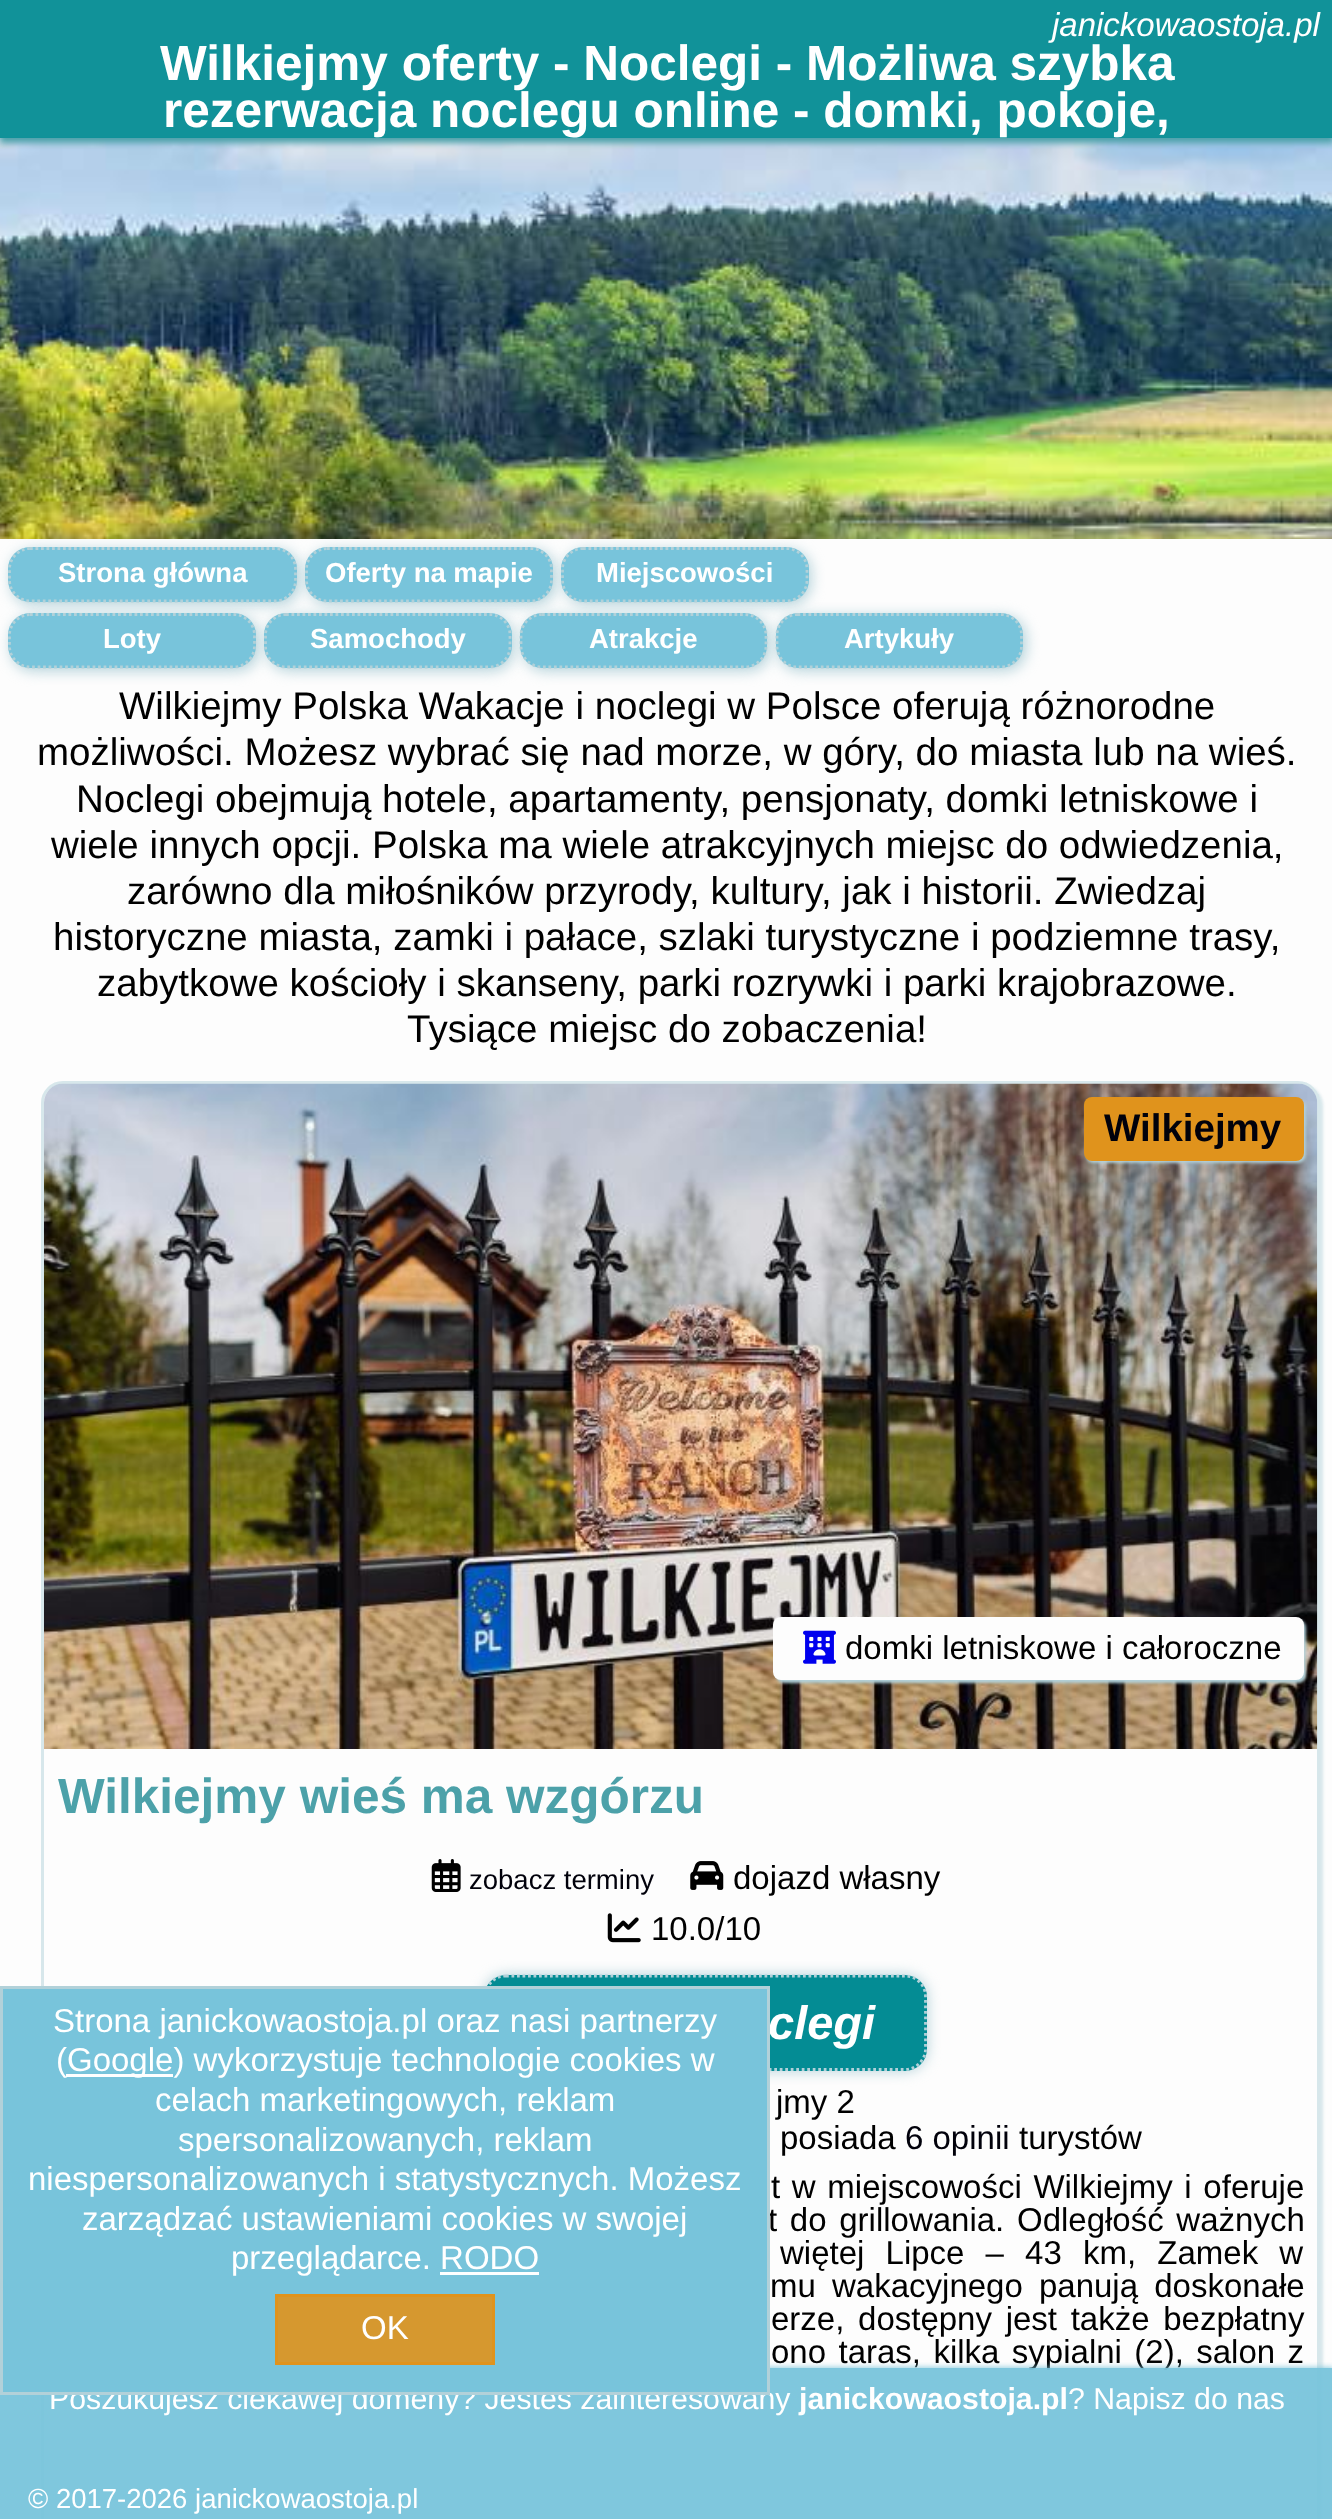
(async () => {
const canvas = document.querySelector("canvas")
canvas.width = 1332
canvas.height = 2519
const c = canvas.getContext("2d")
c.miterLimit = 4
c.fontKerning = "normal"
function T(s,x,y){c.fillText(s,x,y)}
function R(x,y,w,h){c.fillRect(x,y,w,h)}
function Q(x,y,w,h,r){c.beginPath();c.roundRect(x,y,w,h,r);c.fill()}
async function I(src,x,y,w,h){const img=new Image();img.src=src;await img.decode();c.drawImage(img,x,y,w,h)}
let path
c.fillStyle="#fdfdfd"
R(0,0,1332,2519)
await I("1.png",0,137,1332,402)
c.save()
path = new Path2D("M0 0h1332v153h-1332zm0 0h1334v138h-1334z")
c.clip(path,"evenodd")
c.fillStyle="#4ca1a9"
c.filter="blur(3px)"
c.beginPath()
c.rect(0,6,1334,137)
c.fill()
c.filter="none"
c.restore()
c.fillStyle="#048c94f2"
R(0,0,1332,138)
c.font="italic 33px Liberation Sans"
c.fillStyle="#fff"
T("janickowaostoja.pl",1052,36)
c.font="bold 49.5px Liberation Sans"
T("Wilkiejmy oferty - Noclegi - Możliwa szybka",160,80)
T("rezerwacja noclegu online - domki, pokoje,",163,127)
c.save()
c.beginPath()
c.rect(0,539,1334,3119)
c.clip()
c.fillStyle="#b2d1d9"
c.filter="blur(7px)"
c.beginPath()
c.roundRect(11,550,289,55,22)
c.fill()
c.filter="none"
c.restore()
c.fillStyle="#78c4db"
Q(8,547,289,55,22)
path = new Path2D("M30 548.5h245c11.5 0 20.5 9.5 20.5 20.5v11c0 11.5-9 21-20.5 21h-245c-11 0-20.5-9.5-20.5-21v-11c0-11 9.5-20.5 20.5-20.5z")
c.strokeStyle="#b2d1d9"
c.lineWidth=2.8
c.setLineDash([2.75,2.75])
c.stroke(path)
c.font="bold 27.5px Liberation Sans"
c.fillStyle="#fff"
T("Strona główna",58,582)
c.save()
c.beginPath()
c.rect(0,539,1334,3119)
c.clip()
c.fillStyle="#b2d1d9"
c.filter="blur(7px)"
c.beginPath()
c.roundRect(308,550,248,55,22)
c.fill()
c.filter="none"
c.restore()
c.fillStyle="#78c4db"
Q(305,547,248,55,22)
path = new Path2D("M327 548.5h204c11 0 20.5 9.5 20.5 20.5v11c0 11.5-9.5 21-20.5 21h-204c-11 0-20.5-9.5-20.5-21v-11c0-11 9.5-20.5 20.5-20.5z")
c.stroke(path)
c.fillStyle="#fff"
T("Oferty na mapie",325,582)
c.save()
c.beginPath()
c.rect(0,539,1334,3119)
c.clip()
c.fillStyle="#b2d1d9"
c.filter="blur(7px)"
c.beginPath()
c.roundRect(564,550,247,55,22)
c.fill()
c.filter="none"
c.restore()
c.fillStyle="#78c4db"
Q(561,547,248,55,22)
path = new Path2D("M583 548.5h203.5c11.5 0 20.5 9.5 20.5 20.5v11c0 11.5-9 21-20.5 21h-203.5c-11.5 0-20.5-9.5-20.5-21v-11c0-11 9-20.5 20.5-20.5z")
c.stroke(path)
c.fillStyle="#fff"
T("Miejscowości",596,582)
c.fillStyle="#b2d1d9"
c.filter="blur(7px)"
c.beginPath()
c.roundRect(11,616,248,55,22)
c.fill()
c.filter="none"
c.fillStyle="#78c4db"
Q(8,613,248,55,22)
path = new Path2D("M30 614.5h204c11 0 20.5 9.5 20.5 20.5v11c0 11.5-9.5 21-20.5 21h-204c-11 0-20.5-9.5-20.5-21v-11c0-11 9.5-20.5 20.5-20.5z")
c.stroke(path)
c.fillStyle="#fff"
T("Loty",103,648)
c.fillStyle="#b2d1d9"
c.filter="blur(7px)"
c.beginPath()
c.roundRect(267,616,247,55,22)
c.fill()
c.filter="none"
c.fillStyle="#78c4db"
Q(264,613,248,55,22)
path = new Path2D("M286 614.5h203.5c11.5 0 20.5 9.5 20.5 20.5v11c0 11.5-9 21-20.5 21h-203.5c-11.5 0-20.5-9.5-20.5-21v-11c0-11 9-20.5 20.5-20.5z")
c.stroke(path)
c.fillStyle="#fff"
T("Samochody",310,648)
c.fillStyle="#b2d1d9"
c.filter="blur(7px)"
c.beginPath()
c.roundRect(523,616,247,55,22)
c.fill()
c.filter="none"
c.fillStyle="#78c4db"
Q(520,613,247,55,22)
path = new Path2D("M542 614.5h203c11.5 0 21 9.5 21 20.5v11c0 11.5-9.5 21-21 21h-203c-11.5 0-21-9.5-21-21v-11c0-11 9.5-20.5 21-20.5z")
c.stroke(path)
c.fillStyle="#fff"
T("Atrakcje",589,648)
c.fillStyle="#b2d1d9"
c.filter="blur(7px)"
c.beginPath()
c.roundRect(778,616,248,55,22)
c.fill()
c.filter="none"
c.fillStyle="#78c4db"
Q(776,613,247,55,22)
path = new Path2D("M797.5 614.5h203.5c11.5 0 20.5 9.5 20.5 20.5v11c0 11.5-9 21-20.5 21h-203.5c-11.5 0-20.5-9.5-20.5-21v-11c0-11 9-20.5 20.5-20.5z")
c.stroke(path)
c.fillStyle="#fff"
T("Artykuły",844,648)
c.font="38.5px Liberation Sans"
c.fillStyle="#000"
T("Wilkiejmy Polska Wakacje i noclegi w Polsce oferują różnorodne",119,719)
T("możliwości. Możesz wybrać się nad morze, w góry, do miasta lub na wieś.",37,765)
T("Noclegi obejmują hotele, apartamenty, pensjonaty, domki letniskowe i",76,812)
T("wiele innych opcji. Polska ma wiele atrakcyjnych miejsc do odwiedzenia,",51,858)
T("zarówno dla miłośników przyrody, kultury, jak i historii. Zwiedzaj",127,904)
T("historyczne miasta, zamki i pałace, szlaki turystyczne i podziemne trasy,",53,950)
T("zabytkowe kościoły i skanseny, parki rozrywki i parki krajobrazowe.",97,996)
T("Tysiące miejsc do zobaczenia!",407,1042)
c.save()
path = new Path2D("M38 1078h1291v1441h-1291zm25 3h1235c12 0 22 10 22 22v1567c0 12-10 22-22 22h-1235c-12 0-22-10-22-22v-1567c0-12 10-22 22-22z")
c.clip(path,"evenodd")
c.fillStyle="#b2d1d980"
c.filter="blur(1.5px)"
c.beginPath()
c.roundRect(44,1084,1279,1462,22)
c.fill()
c.filter="none"
c.restore()
c.beginPath()
c.roundRect(42.5,1082.5,1276,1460,20.5)
c.strokeStyle="#b2d1d980"
c.lineWidth=3
c.setLineDash([])
c.stroke()
await I("2.png",44,1083,1274,666)
c.fillStyle="#b2d1d9"
c.filter="blur(1.5px)"
c.beginPath()
c.roundRect(1086,1100,220,63,8)
c.fill()
c.filter="none"
c.fillStyle="#e0931c"
Q(1084,1097,220,64,8)
c.font="bold 38.5px Liberation Sans"
c.fillStyle="#01010b"
T("Wilkiejmy",1104,1141)
c.fillStyle="#b2d1d9"
c.filter="blur(1.5px)"
c.beginPath()
c.roundRect(776,1620,530,63,8)
c.fill()
c.filter="none"
c.fillStyle="#fdfdfd"
Q(773,1617,531,63,8)
await I("3.png",803,1630,33,34)
c.font="33px Liberation Sans"
c.fillStyle="#000"
T("domki letniskowe i całoroczne",845,1659)
c.font="bold 49.5px Liberation Sans"
c.fillStyle="#4ca1a9"
T("Wilkiejmy wieś ma wzgórzu",58,1813)
await I("4.png",431,1859,30,33)
c.font="27.5px Liberation Sans"
c.fillStyle="#01010b"
T("zobacz terminy",469,1889)
await I("5.png",690,1861,34,29)
c.font="33px Liberation Sans"
c.fillStyle="#000"
T("dojazd własny",733,1889)
await I("6.png",607,1913,34,30)
T("10.0/10",651,1940)
c.fillStyle="#b2d1d9"
c.filter="blur(7px)"
c.beginPath()
c.roundRect(484,1975,443,96,22)
c.fill()
c.filter="none"
c.fillStyle="#048c94"
Q(484,1975,443,96,22)
path = new Path2D("M506 1976h399c11 0 20.5 9 20.5 20.5v52.5c0 11-9.5 20.5-20.5 20.5h-399c-11.5 0-20.5-9.5-20.5-20.5v-52.5c0-11.5 9-20.5 20.5-20.5z")
c.strokeStyle="#b2d1d9"
c.lineWidth=2.8
c.setLineDash([2.75,2.75])
c.stroke(path)
c.font="italic bold 47px Liberation Sans"
c.fillStyle="#fff"
T("clegi",768,2039)
c.font="33px Liberation Sans"
c.fillStyle="#000"
T("jmy 2",776,2113)
T("posiada",780,2149)
c.fillStyle="#01010b"
T("6 opinii",905,2149)
c.fillStyle="#000"
T("turystów",1019,2149)
c.wordSpacing="2.5px"
T("t w miejscowości Wilkiejmy i oferuje",771,2198)
c.wordSpacing="3.5px"
T("t do grillowania. Odległość ważnych",768,2231)
c.wordSpacing="12px"
T("więtej Lipce – 43 km, Zamek w",780,2264)
c.wordSpacing="7px"
T("mu wakacyjnego panują doskonałe",770,2297)
c.wordSpacing="4.5px"
T("erze, dostępny jest także bezpłatny",771,2330)
c.wordSpacing="3.25px"
T("ono taras, kilka sypialni (2), salon z",771,2363)
c.save()
c.beginPath()
c.rect(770,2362,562,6)
c.clip()
c.fillStyle="#78c4db"
c.filter="blur(3px)"
c.beginPath()
c.rect(0,2368,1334,151)
c.fill()
c.filter="none"
c.restore()
c.fillStyle="#78c4dbf2"
R(0,2368,1332,151)
c.wordSpacing="0px"
c.font="30.25px Liberation Sans"
c.fillStyle="#fff"
T("Poszukujesz ciekawej domeny? Jesteś zainteresowany",49,2409)
c.fillStyle="#78c4db"
c.beginPath()
c.rect(1.5,1987.5,767,406)
c.fill()
c.lineWidth=3
c.setLineDash([])
c.stroke()
c.font="33px Liberation Sans"
c.fillStyle="#fff"
T("Strona janickowaostoja.pl oraz nasi partnerzy",53,2032)
T("(",56,2071)
R(66,2074,107,3)
T("Google) wykorzystuje technologie cookies w",67,2071)
T("celach marketingowych, reklam",155,2111)
T("spersonalizowanych, reklam",178,2151)
T("niespersonalizowanych i statystycznych. Możesz",28,2190)
T("zarządzać ustawieniami cookies w swojej",82,2230)
T("przeglądarce. RODO",231,2269)
R(440,2272,99,3)
c.fillStyle="#d6982f"
c.beginPath()
c.rect(276.5,2295.5,217,68)
c.fill()
c.strokeStyle="#e0931c"
c.stroke()
c.fillStyle="#fff"
T("OK",361,2339)
c.font="bold 30.25px Liberation Sans"
T("janickowaostoja.pl",799,2409)
c.font="30.25px Liberation Sans"
T("? Napisz do nas",1068,2409)
c.font="27.5px Liberation Sans"
T("© 2017-2026 janickowaostoja.pl",28,2508)
})()
